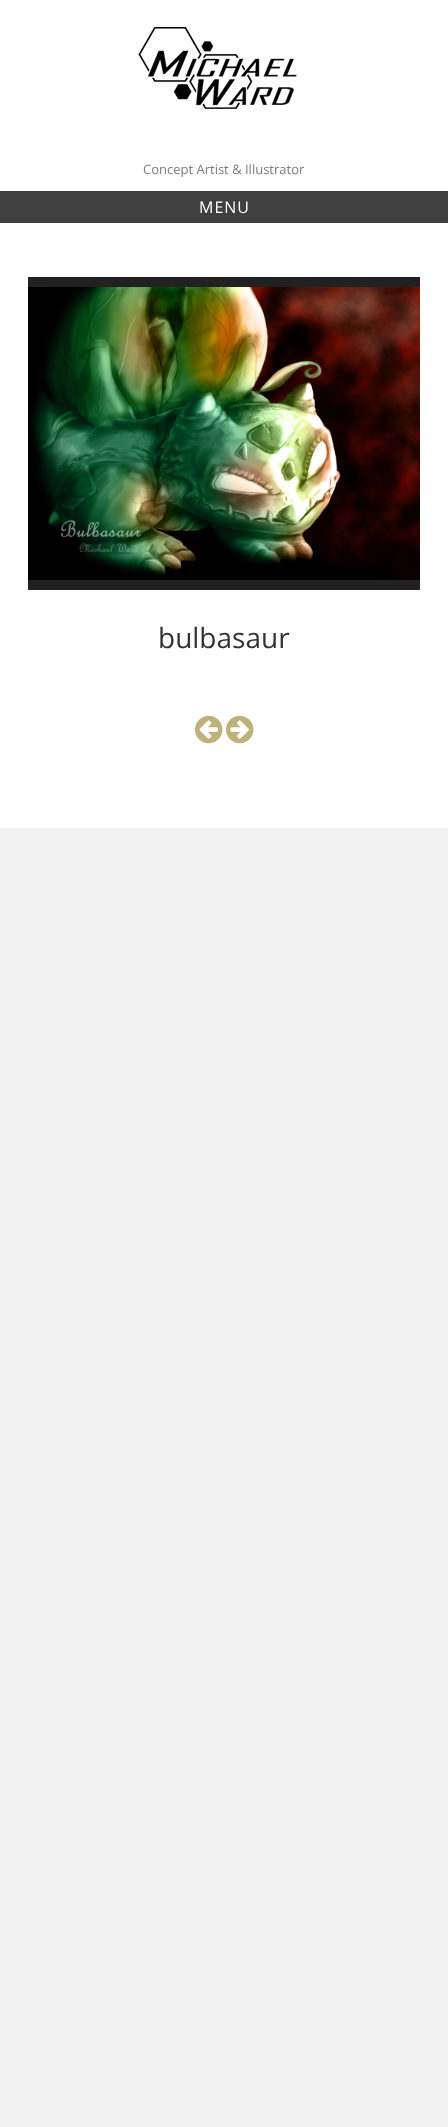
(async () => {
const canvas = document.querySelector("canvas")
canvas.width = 448
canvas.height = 2127
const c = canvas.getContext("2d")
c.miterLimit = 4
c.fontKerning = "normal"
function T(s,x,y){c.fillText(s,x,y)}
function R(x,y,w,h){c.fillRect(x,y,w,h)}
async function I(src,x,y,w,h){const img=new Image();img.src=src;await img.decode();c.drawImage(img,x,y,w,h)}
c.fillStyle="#f1f1f1"
R(0,0,448,2127)
c.fillStyle="#fff"
R(0,0,448,191)
await I("1.png",138,27,159,82)
c.font="13px Open Sans"
c.fillStyle="#797d82"
T("Concept Artist & Illustrator",143,174)
c.fillStyle="#3f3f3f"
R(0,191,448,32)
c.letterSpacing="1px"
c.font="16px Open Sans"
c.fillStyle="#fff"
T("MENU",199,213)
R(0,223,448,605)
c.fillStyle="#212121"
R(28,277,392,313)
await I("2.png",28,287,392,293)
c.letterSpacing="0px"
c.font="28px Open Sans"
c.fillStyle="#333"
T("bulbasaur",158,648)
await I("3.png",195,715,28,29)
await I("4.png",226,715,28,29)
})()
